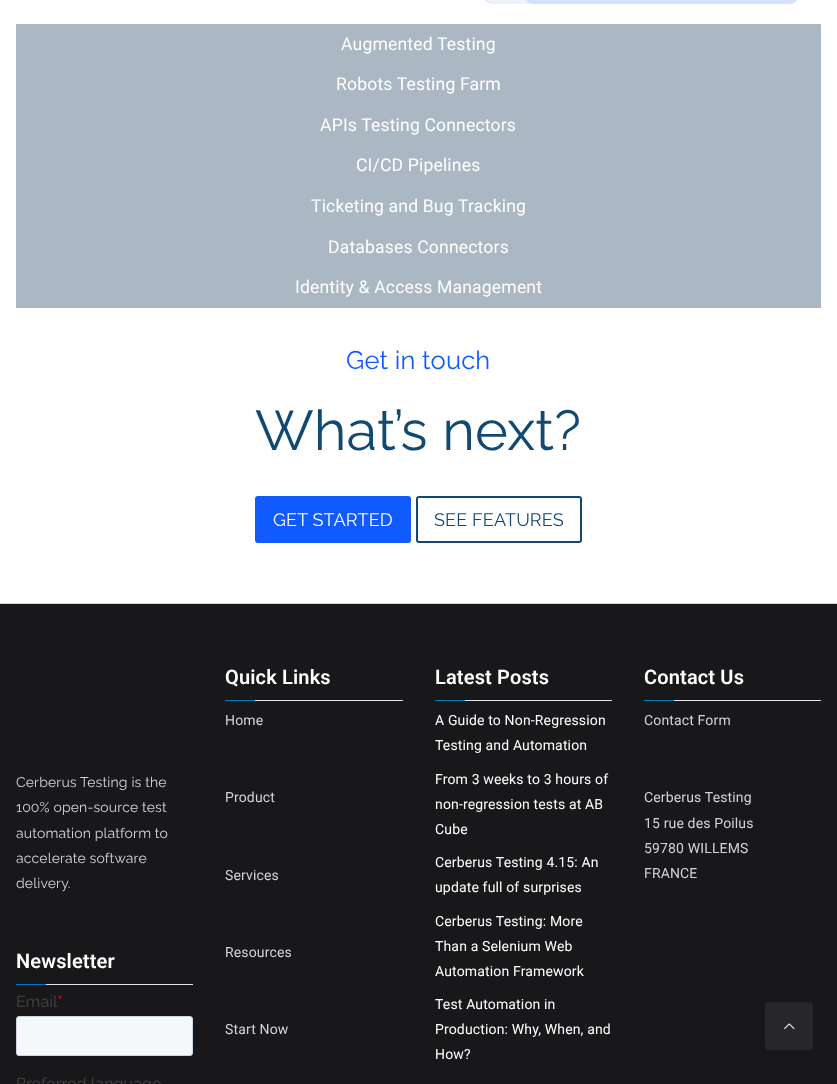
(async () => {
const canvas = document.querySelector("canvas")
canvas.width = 837
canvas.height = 1084
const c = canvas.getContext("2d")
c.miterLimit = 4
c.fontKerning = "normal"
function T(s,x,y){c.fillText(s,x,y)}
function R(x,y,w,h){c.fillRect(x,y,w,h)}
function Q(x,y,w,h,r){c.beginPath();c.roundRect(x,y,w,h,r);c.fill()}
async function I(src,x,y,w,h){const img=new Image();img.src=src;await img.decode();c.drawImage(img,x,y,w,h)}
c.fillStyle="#fff"
R(0,0,837,1084)
await I("1.png",484,0,313,4)
c.fillStyle="#abb8c3"
R(16,24,805,284)
c.letterSpacing="0.15px"
c.font="17.6px Roboto"
c.fillStyle="#fff"
T("Augmented Testing",341,50)
T("Robots Testing Farm",336,90)
T("APIs Testing Connectors",320,131)
T("CI/CD Pipelines",356,171)
T("Ticketing and Bug Tracking",311,212)
T("Databases Connectors",328,253)
T("Identity & Access Management",295,293)
c.font="25.5px Raleway"
c.fillStyle="#105afe"
T("Get in touch",346,369)
c.font="56px Raleway"
c.fillStyle="#104971"
T("What’s next?",255,450)
c.fillStyle="#105afe"
c.beginPath()
c.roundRect(256,497,154,45,2)
c.fill()
c.strokeStyle="#105afe"
c.lineWidth=2
c.stroke()
c.font="18px Raleway"
c.fillStyle="#fff"
T("GET STARTED",273,526)
c.beginPath()
c.roundRect(417,497,164,45,2)
c.strokeStyle="#104971"
c.stroke()
c.fillStyle="#104971"
T("SEE FEATURES",434,526)
c.fillStyle="#18181b"
R(0,604,837,480)
c.fillStyle="#d4d4d8"
R(0,603,837,1)
c.font="14px Raleway"
T("Cerberus Testing is the",16,787)
T("100% open-source test",16,812)
T("automation platform to",16,838)
T("accelerate software",16,863)
T("delivery.",16,888)
c.fillStyle="#e4e4e7"
R(46,984,147,1)
c.font="600 20px Roboto"
c.fillStyle="#fff"
T("Newsletter",16,968)
c.fillStyle="#027abb"
R(16,984,30,1)
await I("2.png",16,995,177,89)
c.fillStyle="#e4e4e7"
R(255,700,148,1)
c.fillStyle="#fff"
T("Quick Links",225,684)
c.fillStyle="#027abb"
R(225,700,30,1)
c.font="14px Roboto"
c.fillStyle="#d4d4d8"
T("Home",225,725)
T("Product",225,802)
T("Services",225,880)
T("Resources",225,957)
T("Start Now",225,1034)
c.fillStyle="#e4e4e7"
R(465,700,147,1)
c.font="600 20px Roboto"
c.fillStyle="#fff"
T("Latest Posts",435,684)
c.fillStyle="#027abb"
R(435,700,30,1)
c.font="14px Roboto"
c.fillStyle="#fff"
T("A Guide to Non-Regression",435,725)
T("Testing and Automation",435,750)
T("From 3 weeks to 3 hours of",435,784)
T("non-regression tests at AB",435,809)
T("Cube",435,834)
T("Cerberus Testing 4.15: An",435,867)
T("update full of surprises",435,892)
T("Cerberus Testing: More",435,926)
T("Than a Selenium Web",435,951)
T("Automation Framework",435,976)
T("Test Automation in",435,1009)
T("Production: Why, When, and",435,1034)
T("How?",435,1059)
c.fillStyle="#e4e4e7"
R(674,700,147,1)
c.font="600 20px Roboto"
c.fillStyle="#fff"
T("Contact Us",644,684)
c.fillStyle="#027abb"
R(644,700,30,1)
c.font="14px Roboto"
c.fillStyle="#d4d4d8"
T("Contact Form",644,725)
T("Cerberus Testing",644,802)
T("15 rue des Poilus",644,828)
T("59780 WILLEMS",644,853)
T("FRANCE",644,878)
c.fillStyle="#27272a"
Q(765,1002,48,48,4)
await I("3.png",784,1023,11,7)
})()
